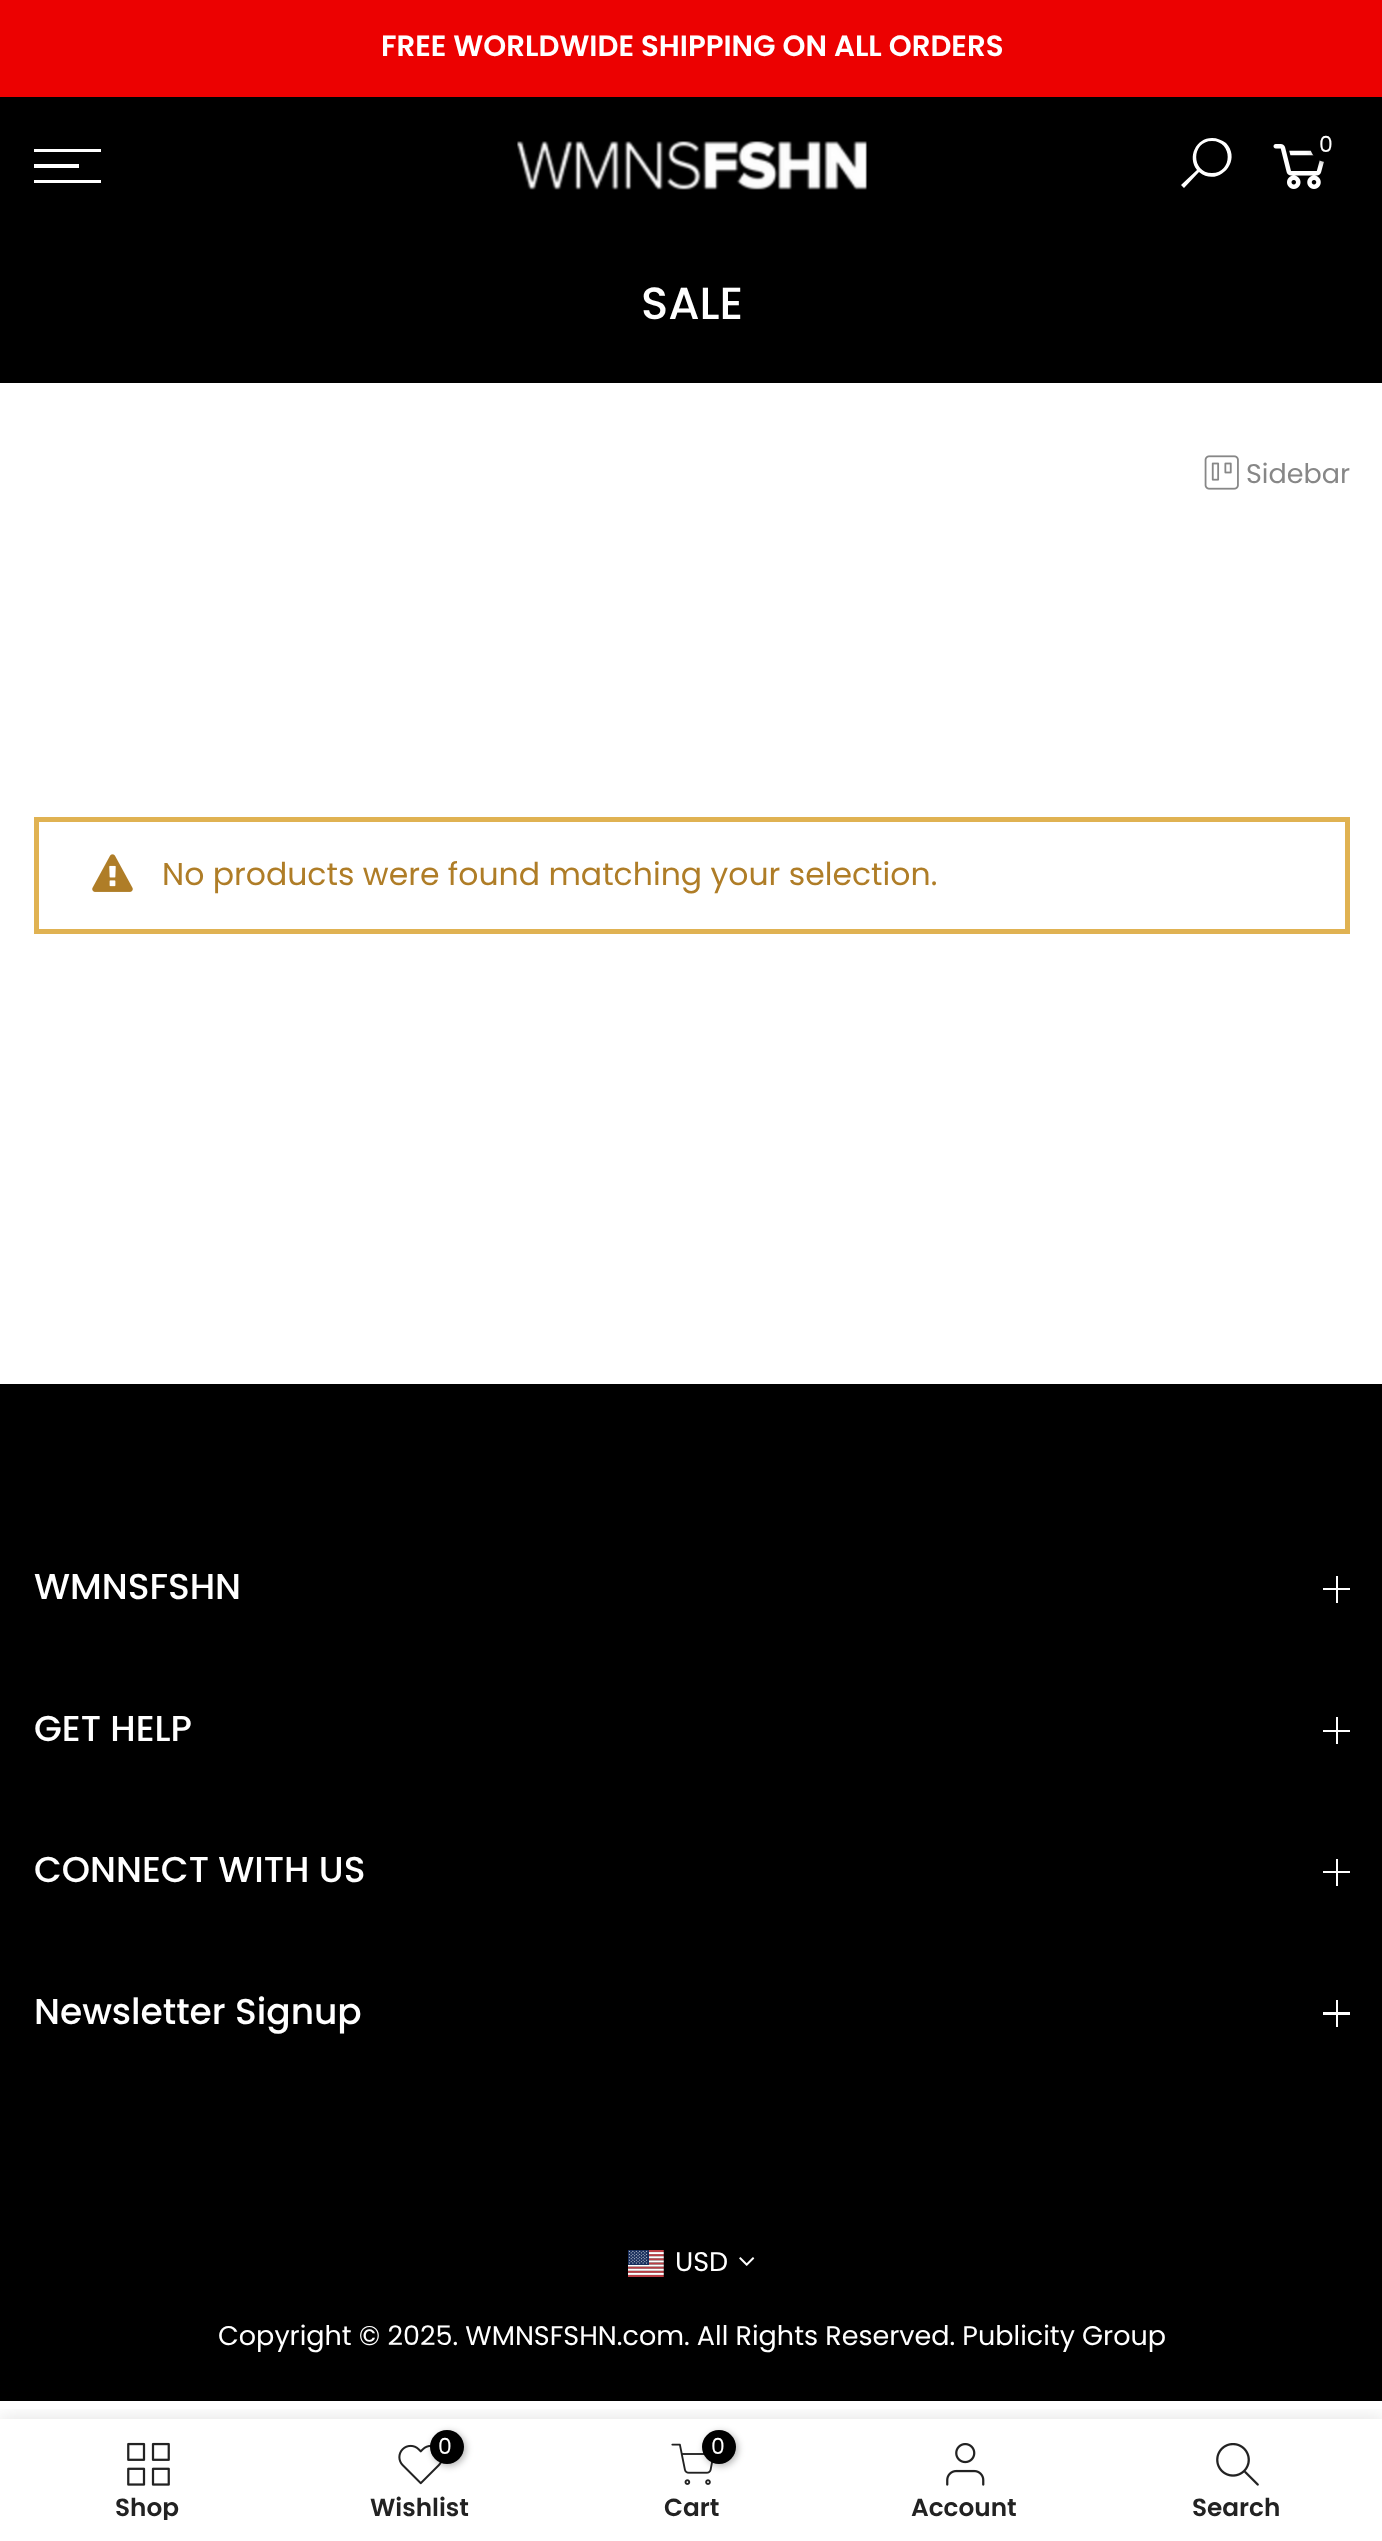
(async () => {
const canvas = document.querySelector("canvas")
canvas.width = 1382
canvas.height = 2541
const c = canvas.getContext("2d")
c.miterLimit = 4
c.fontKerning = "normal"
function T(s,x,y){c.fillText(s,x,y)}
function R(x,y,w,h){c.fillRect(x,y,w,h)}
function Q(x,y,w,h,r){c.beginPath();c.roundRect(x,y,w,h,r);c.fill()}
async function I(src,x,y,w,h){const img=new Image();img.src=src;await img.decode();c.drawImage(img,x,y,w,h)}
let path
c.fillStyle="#fff"
R(0,0,1382,2541)
c.fillStyle="#ec0101"
R(0,0,1382,97)
c.font="600 29.25px Poppins"
c.fillStyle="#fff"
T("FREE WORLDWIDE SHIPPING ON ALL ORDERS",381,56)
c.fillStyle="#000"
R(0,97,1382,286)
c.fillStyle="#fff"
R(34,149,67,3)
R(34,164,45,4)
R(34,180,67,3)
await I("1.png",517,141,350,49)
path = new Path2D("M1212 138c-16 0-25 19-15 32l-16 15l3 3l15-16c19 16 44-11 27-29c-4-3-9-5-14-5zm0 3c21 0 21 32 0 32c-21 0-21-32 0-32z")
c.fill(path)
await I("2.png",1273,144,52,45)
c.fillStyle="#0000004d"
c.filter="blur(3.5px)"
c.beginPath()
c.roundRect(1312,131,34,33,16.5)
c.fill()
c.filter="none"
c.fillStyle="#000"
Q(1310,128,33,34,16.5)
c.font="22px Poppins"
c.fillStyle="#fff"
T("0",1319,152)
c.font="500 45px Poppins"
T("SALE",641,319)
await I("3.png",1204,455,35,35)
c.font="27px Poppins"
c.fillStyle="#878787"
T("Sidebar",1246,483)
c.strokeStyle="#e0b252"
c.lineWidth=5
c.strokeRect(36.5,819.5,1311,112)
await I("4.png",92,854,41,38)
c.font="31.5px Poppins"
c.fillStyle="#af7d27"
T("No products were found matching your selection.",162,885)
c.fillStyle="#000"
R(0,1384,1382,1017)
c.font="500 36px Poppins"
c.fillStyle="#fff"
T("WMNSFSHN",34,1599)
R(1336,1576,2,27)
R(1323,1588,27,2)
T("GET HELP",34,1741)
R(1336,1717,2,27)
R(1323,1730,27,2)
T("CONNECT WITH US",34,1882)
R(1336,1859,2,27)
R(1323,1871,27,2)
T("Newsletter Signup",34,2024)
R(1336,2000,2,27)
R(1323,2012,27,3)
await I("5.png",628,2250,36,27)
c.font="27px Poppins"
T("USD",675,2271)
await I("6.png",739,2257,16,9)
T("Copyright © 2025. WMNSFSHN.com. All Rights Reserved. Publicity Group",218,2345)
c.save()
c.beginPath()
c.rect(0,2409,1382,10)
c.clip()
c.fillStyle="#0000001f"
c.filter="blur(10px)"
c.beginPath()
c.rect(0,2419,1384,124)
c.fill()
c.filter="none"
c.restore()
await I("7.png",127,2442,43,44)
c.save()
c.beginPath()
c.rect(34,2495,227,25)
c.clip()
c.font="600 24.75px Poppins"
c.fillStyle="#222"
T("Shop",115,2516)
c.restore()
await I("8.png",398,2444,44,41)
c.fillStyle="#0000004d"
c.filter="blur(3.5px)"
c.beginPath()
c.roundRect(432,2432,34,34,17)
c.fill()
c.filter="none"
c.fillStyle="#000"
c.beginPath()
c.arc(447,2447,17,0,7)
c.fill()
c.font="22px Poppins"
c.fillStyle="#fff"
T("0",438,2454)
c.font="600 24.75px Poppins"
c.fillStyle="#222"
T("Wishlist",370,2516)
await I("9.png",671,2443,42,42)
c.fillStyle="#0000004d"
c.filter="blur(3.5px)"
c.beginPath()
c.roundRect(704,2432,34,34,17)
c.fill()
c.filter="none"
c.fillStyle="#000"
c.beginPath()
c.arc(719,2447,17,0,7)
c.fill()
c.font="22px Poppins"
c.fillStyle="#fff"
T("0",711,2454)
c.font="600 24.75px Poppins"
c.fillStyle="#222"
T("Cart",664,2516)
await I("10.png",946,2443,39,43)
T("Account",911,2516)
await I("11.png",1216,2443,43,43)
T("Search",1192,2516)
})()
